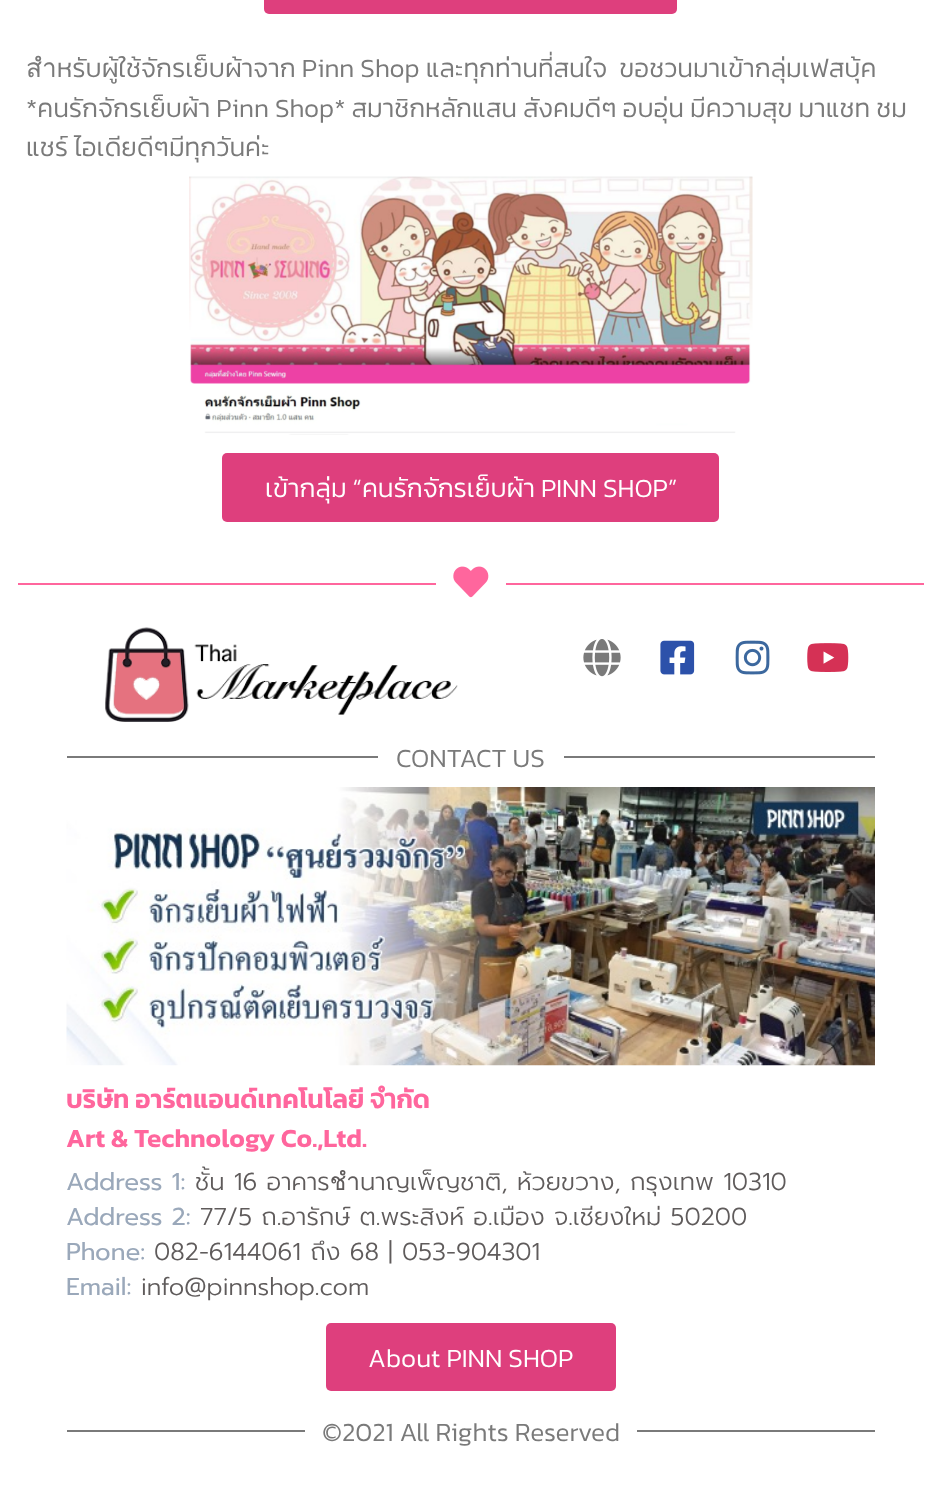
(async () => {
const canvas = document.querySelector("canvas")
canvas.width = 941
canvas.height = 1502
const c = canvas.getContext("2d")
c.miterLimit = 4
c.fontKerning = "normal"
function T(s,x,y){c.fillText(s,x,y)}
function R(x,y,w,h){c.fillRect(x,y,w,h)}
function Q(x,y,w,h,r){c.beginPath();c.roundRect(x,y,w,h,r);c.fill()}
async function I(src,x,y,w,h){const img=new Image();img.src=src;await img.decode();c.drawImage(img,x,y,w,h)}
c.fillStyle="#fff"
R(0,0,941,1502)
c.fillStyle="#de3f7d"
Q(264,-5,413,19,5)
c.font="300 26.25px Kanit"
c.fillStyle="#7a7a7a"
T("สำหรับผู้ใช้จักรเย็บผ้าจาก Pinn Shop และทุกท่านที่สนใจ  ขอชวนมาเข้ากลุ่มเฟสบุ้ค",26,77)
T("*คนรักจักรเย็บผ้า Pinn Shop* สมาชิกหลักแสน สังคมดีๆ อบอุ่น มีความสุข มาแชท ชม",26,117)
T("แชร์ ไอเดียดีๆมีทุกวันค่ะ",26,156)
await I("1.png",189,176,564,259)
c.fillStyle="#de3f7d"
Q(222,453,497,69,5)
c.fillStyle="#fff"
T("เข้ากลุ่ม “คนรักจักรเย็บผ้า PINN SHOP”",265,497)
c.fillStyle="#ff669d"
R(18,583,418,2)
await I("2.png",453,566,36,32)
R(506,583,418,2)
await I("3.png",105,627,353,95)
await I("4.png",583,639,38,38)
await I("5.png",660,640,35,35)
await I("6.png",735,640,35,35)
await I("7.png",807,643,42,29)
c.fillStyle="#7a7a7a"
R(67,756,311,2)
T("CONTACT US",396,767)
R(564,756,311,2)
await I("8.png",66,787,809,279)
c.font="600 26.25px Kanit"
c.fillStyle="#ff669d"
T("บริษัท อาร์ตแอนด์เทคโนโลยี จำกัด",66,1108)
T("Art & Technology Co.,Ltd.",66,1147)
c.font="24.5px Prompt"
c.fillStyle="#9aa8ba"
T("Address 1:",66,1190)
c.font="300 24.5px Prompt"
c.fillStyle="#5f5b5b"
T("ชั้น 16 อาคารชำนาญเพ็ญชาติ, ห้วยขวาง, กรุงเทพ 10310",195,1190)
c.font="24.5px Prompt"
c.fillStyle="#9aa8ba"
T("Address 2:",66,1225)
c.font="300 24.5px Prompt"
c.fillStyle="#5f5b5b"
T("77/5 ถ.อารักษ์ ต.พระสิงห์ อ.เมือง จ.เชียงใหม่ 50200",200,1225)
c.font="24.5px Prompt"
c.fillStyle="#9aa8ba"
T("Phone:",66,1260)
c.font="300 24.5px Prompt"
c.fillStyle="#5f5b5b"
T("082-6144061 ถึง 68 | 053-904301",154,1260)
c.font="24.5px Prompt"
c.fillStyle="#9aa8ba"
T("Email:",66,1295)
c.font="300 24.5px Prompt"
c.fillStyle="#5f5b5b"
T("info@pinnshop.com",141,1295)
c.fillStyle="#de3f7d"
Q(326,1323,290,68,5)
c.font="300 26.25px Kanit"
c.fillStyle="#fff"
T("About PINN SHOP",368,1367)
c.fillStyle="#7a7a7a"
R(67,1430,238,2)
T("©2021 All Rights Reserved",322,1441)
R(637,1430,238,2)
})()
